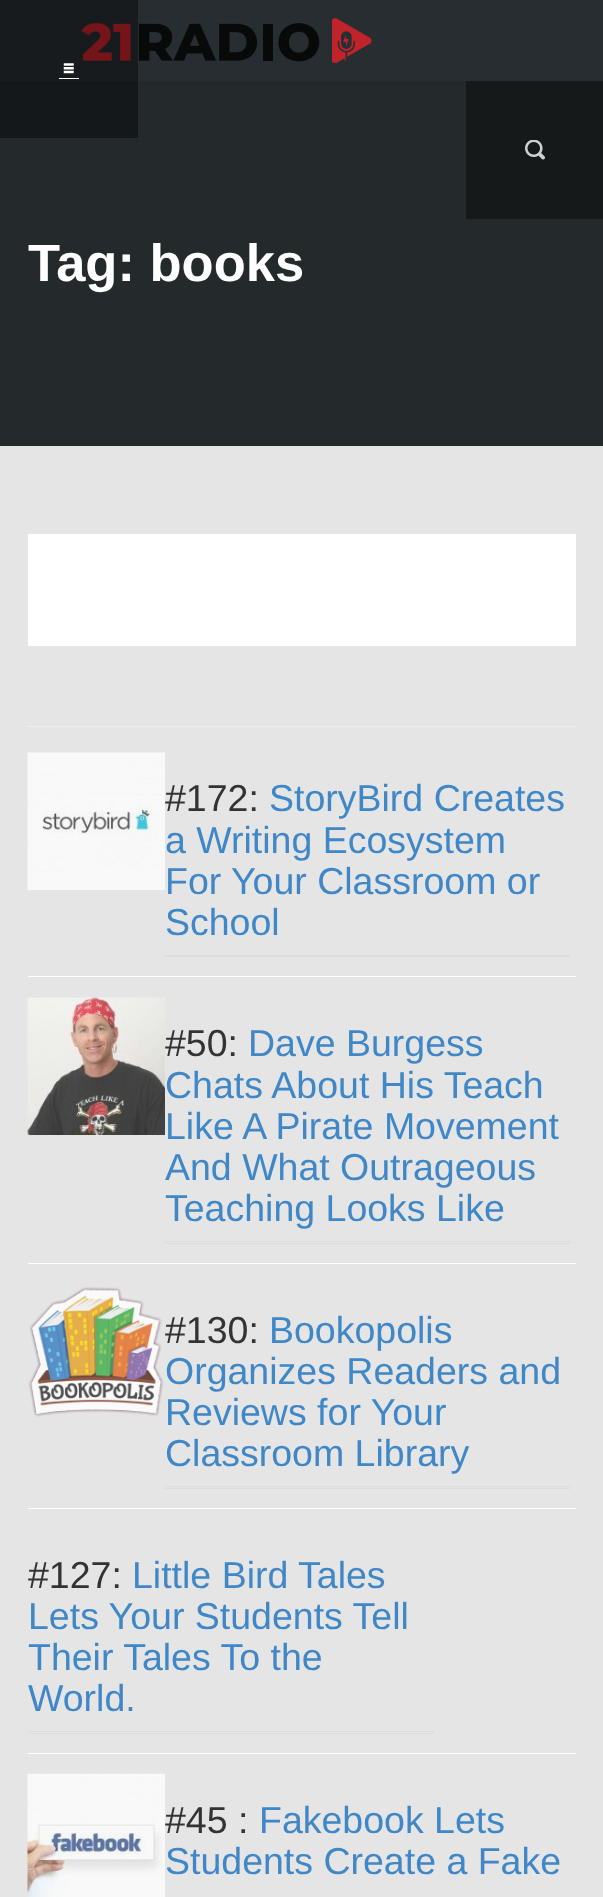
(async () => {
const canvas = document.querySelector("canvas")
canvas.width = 603
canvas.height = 1897
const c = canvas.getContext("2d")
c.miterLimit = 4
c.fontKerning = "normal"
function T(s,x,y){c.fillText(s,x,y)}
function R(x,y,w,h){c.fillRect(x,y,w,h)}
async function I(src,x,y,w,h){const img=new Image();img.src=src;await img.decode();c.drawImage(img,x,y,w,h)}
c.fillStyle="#282d31"
R(0,0,603,1897)
await I("2.png",81,18,291,45)
c.fillStyle="#24292c"
R(0,81,603,365)
c.fillStyle="#00000066"
R(0,0,138,138)
await I("1.png",63,63,11,11)
c.fillStyle="#fff"
R(59,78,20,1)
c.fillStyle="#16191a"
R(466,81,137,138)
await I("3.png",525,140,20,20)
c.font="bold 52.5px Liberation Sans"
c.fillStyle="#fff"
T("Tag: books",28,281)
c.fillStyle="#e5e5e5"
R(0,446,603,1451)
c.fillStyle="#fff"
R(28,534,548,112)
c.fillStyle="#eee"
R(28,726,548,1)
await I("4.png",27,752,138,138)
c.font="37.5px Liberation Sans"
c.fillStyle="#333"
T("#172:",165,811)
c.fillStyle="#3f87c7"
T("StoryBird Creates",269,811)
T("a Writing Ecosystem",165,853)
T("For Your Classroom or",165,894)
T("School",165,935)
c.fillStyle="#ddd"
R(165,955,405,1)
R(569,955,1,3)
R(165,956,405,1)
R(165,955,1,3)
c.fillStyle="#fff"
R(28,976,548,1)
await I("5.png",27,997,138,138)
c.fillStyle="#333"
T("#50:",165,1056)
c.fillStyle="#3f87c7"
T("Dave Burgess",248,1056)
T("Chats About His Teach",165,1098)
T("Like A Pirate Movement",165,1139)
T("And What Outrageous",165,1180)
T("Teaching Looks Like",165,1221)
c.fillStyle="#ddd"
R(165,1241,405,1)
R(569,1241,1,3)
R(165,1243,405,1)
R(165,1241,1,3)
c.fillStyle="#fff"
R(28,1263,548,1)
await I("6.png",28,1287,136,130)
c.fillStyle="#333"
T("#130:",165,1343)
c.fillStyle="#3f87c7"
T("Bookopolis",269,1343)
T("Organizes Readers and",165,1384)
T("Reviews for Your",165,1425)
T("Classroom Library",165,1466)
c.fillStyle="#ddd"
R(165,1486,405,1)
R(569,1486,1,3)
R(165,1488,405,1)
R(165,1486,1,3)
c.fillStyle="#fff"
R(28,1508,548,1)
c.fillStyle="#333"
T("#127:",28,1588)
c.fillStyle="#3f87c7"
T("Little Bird Tales",132,1588)
T("Lets Your Students Tell",28,1629)
T("Their Tales To the",28,1670)
T("World.",28,1711)
c.fillStyle="#ddd"
R(28,1731,406,1)
R(433,1731,1,3)
R(28,1733,406,1)
R(28,1731,1,3)
c.fillStyle="#fff"
R(28,1753,548,1)
await I("7.png",27,1773,138,124)
c.fillStyle="#333"
T("#45 :",165,1833)
c.fillStyle="#3f87c7"
T("Fakebook Lets",259,1833)
T("Students Create a Fake",165,1874)
})()
